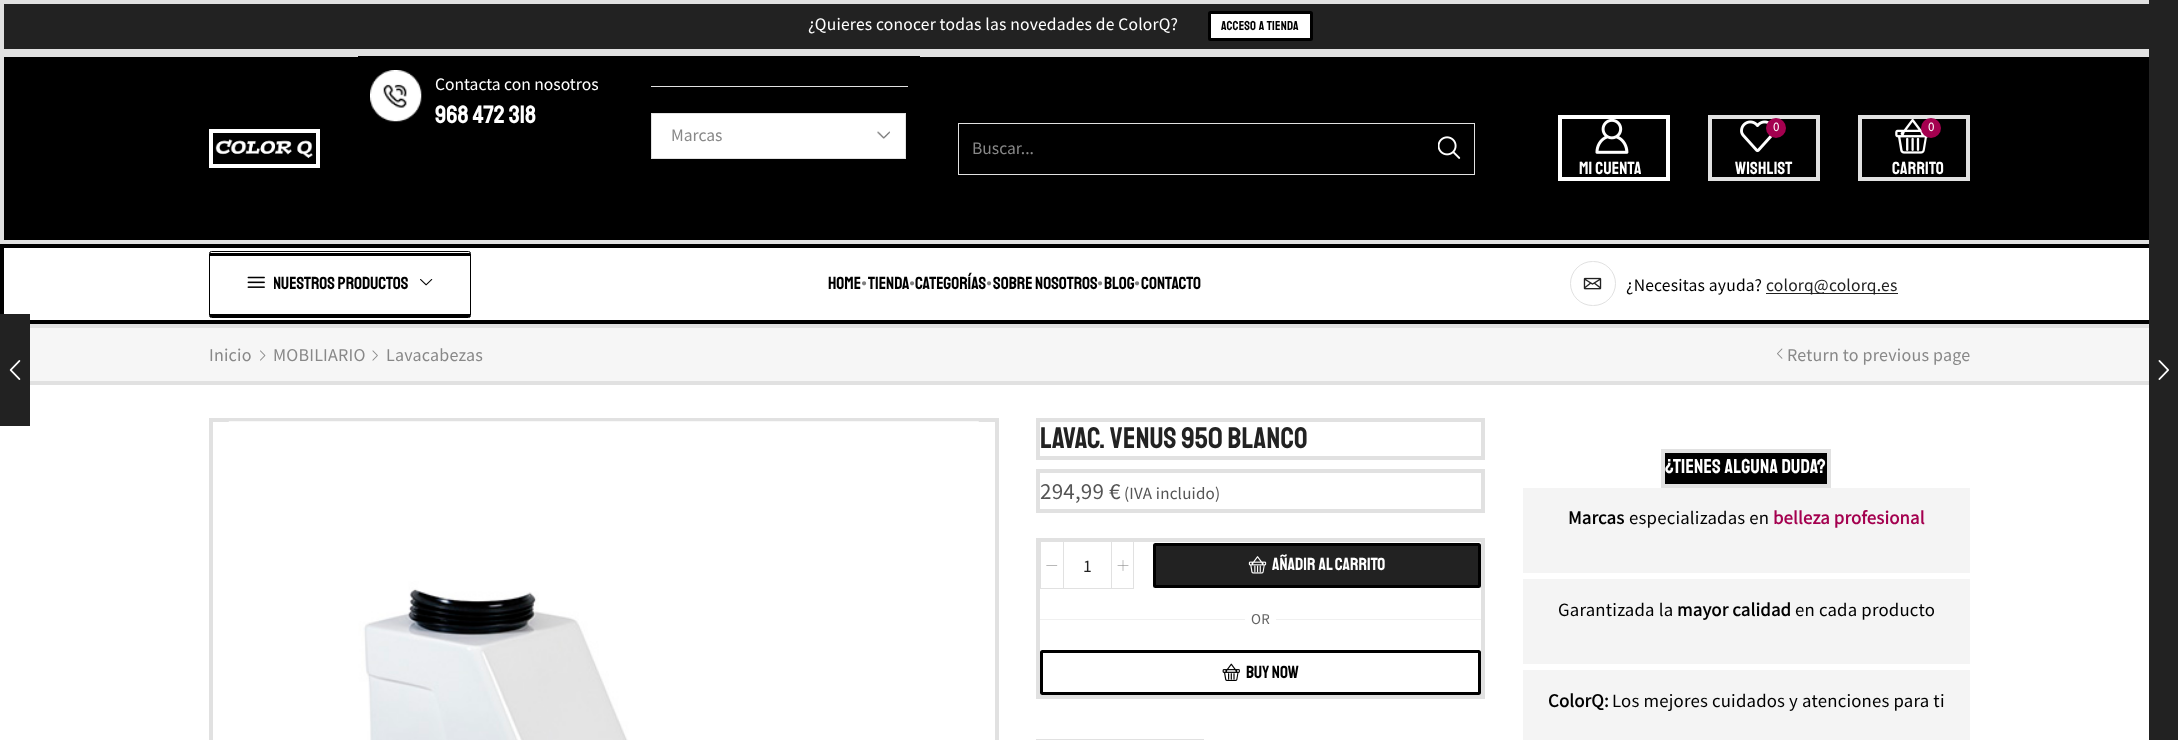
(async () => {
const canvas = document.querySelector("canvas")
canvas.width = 2178
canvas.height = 740
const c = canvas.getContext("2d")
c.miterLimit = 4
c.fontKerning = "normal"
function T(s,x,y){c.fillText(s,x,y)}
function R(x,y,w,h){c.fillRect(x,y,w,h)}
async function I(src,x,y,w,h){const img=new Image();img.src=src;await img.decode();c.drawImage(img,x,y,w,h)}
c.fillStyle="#fff"
R(0,0,2178,740)
c.fillStyle="#222"
R(4,4,2145,45)
c.strokeStyle="#e1e1e1"
c.lineWidth=4
c.strokeRect(2,2,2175,49)
c.letterSpacing="0.2px"
c.font="17.5px Source Sans Pro"
c.fillStyle="#fff"
T("¿Quieres conocer todas las novedades de ColorQ?",808,30)
c.beginPath()
c.roundRect(1209.5,12.5,102,27,1)
c.fill()
c.strokeStyle="#000"
c.lineWidth=3
c.stroke()
c.font="13px Staatliches"
c.fillStyle="#000"
T("ACCESO A TIENDA",1221,30)
R(4,57,2145,183)
c.strokeStyle="#e1e1e1"
c.lineWidth=4
c.strokeRect(2,55,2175,187)
R(358,56,562,1)
await I("1.png",370,70,52,52)
c.letterSpacing="0px"
c.font="17.5px Source Sans Pro"
c.fillStyle="#fff"
T("Сontacta con nosotros",435,90)
c.font="25px Staatliches"
T("968 472 318",435,123)
c.fillStyle="#e1e1e1"
R(651,86,257,1)
c.fillStyle="#fff"
R(652,114,253,44)
await I("2.png",877,131,13,8)
c.lineWidth=1
c.strokeRect(651.5,113.5,254,45)
c.font="17.5px Source Sans Pro"
c.fillStyle="#888"
T("Marcas",671,141)
c.strokeStyle="#fff"
c.lineWidth=4
c.strokeRect(211,131,107,35)
await I("3.png",215,139,98,19)
c.strokeStyle="#e1e1e1"
c.lineWidth=1
c.strokeRect(958.5,123.5,516,51)
T("Buscar...",972,154)
await I("4.png",1438,136,23,23)
c.lineWidth=4
c.strokeRect(1710,117,108,62)
await I("5.png",1740,120,33,33)
c.fillStyle="#a4004f"
c.beginPath()
c.arc(1776,128,10,0,7)
c.fill()
c.letterSpacing="0.2px"
c.font="13px Source Sans Pro"
c.fillStyle="#fff"
T("0",1773,131)
c.font="17.5px Staatliches"
T("WISHLIST",1735,174)
c.strokeRect(1860,117,108,62)
await I("6.png",1895,119,34,35)
c.fillStyle="#a4004f"
c.beginPath()
c.arc(1931,128,10,0,7)
c.fill()
c.font="13px Source Sans Pro"
c.fillStyle="#fff"
T("0",1928,131)
c.font="17.5px Staatliches"
T("CARRITO",1892,174)
c.strokeStyle="#fff"
c.strokeRect(1560,117,108,62)
await I("7.png",1595,119,34,35)
T("MI CUENTA",1579,174)
c.strokeStyle="#000"
c.strokeRect(2,246,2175,76)
c.beginPath()
c.roundRect(209.5,251.5,261,66,2)
c.lineWidth=1
c.stroke()
c.fillStyle="#000"
R(210,253,260,3)
R(210,314,260,3)
await I("8.png",247,276,18,12)
c.save()
c.beginPath()
c.rect(274,275,135,18)
c.clip()
c.letterSpacing="0px"
T("Nuestros productos",273,289)
c.restore()
await I("9.png",420,279,13,7)
c.letterSpacing="0px"
T("Home",828,289)
c.letterSpacing="0.2px"
c.font="17.5px Liberation Serif"
c.fillStyle="#808080"
T("•",861,289)
c.letterSpacing="0px"
c.font="17.5px Staatliches"
c.fillStyle="#000"
T("Tienda",868,289)
c.letterSpacing="0.2px"
c.font="17.5px Liberation Serif"
c.fillStyle="#808080"
T("•",909,289)
c.letterSpacing="0px"
c.font="17.5px Staatliches"
c.fillStyle="#000"
T("Categorías",915,289)
c.letterSpacing="0.2px"
c.font="17.5px Liberation Serif"
c.fillStyle="#808080"
T("•",986,289)
c.letterSpacing="0px"
c.font="17.5px Staatliches"
c.fillStyle="#000"
T("Sobre Nosotros",993,289)
c.letterSpacing="0.2px"
c.font="17.5px Liberation Serif"
c.fillStyle="#808080"
T("•",1097,289)
c.letterSpacing="0px"
c.font="17.5px Staatliches"
c.fillStyle="#000"
T("Blog",1104,289)
c.letterSpacing="0.2px"
c.font="17.5px Liberation Serif"
c.fillStyle="#808080"
T("•",1134,289)
c.letterSpacing="0px"
c.font="17.5px Staatliches"
c.fillStyle="#000"
T("Contacto",1141,289)
c.beginPath()
c.roundRect(1570.5,261.5,45,44,22)
c.strokeStyle="#e1e1e1"
c.stroke()
await I("10.png",1583,277,19,13)
c.letterSpacing="0.2px"
c.font="17.5px Source Sans Pro"
T("¿Necesitas ayuda?",1626,291)
c.fillStyle="#222"
R(1766,293,132,1)
T("colorq@colorq.es",1766,291)
c.fillStyle="#f6f6f6"
R(30,328,2119,53)
c.lineWidth=4
c.strokeRect(2,326,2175,57)
c.font="18px Source Sans Pro"
c.fillStyle="#888"
T("Inicio",209,361)
await I("11.png",260,350,6,11)
T("MOBILIARIO",273,361)
await I("12.png",372,350,6,11)
T("Lavacabezas",386,361)
await I("13.png",1777,348,6,11)
T("Return to previous page",1787,361)
c.fillStyle="#222"
R(0,314,30,112)
await I("14.png",9,360,12,20)
R(2149,0,29,740)
await I("15.png",2158,360,11,20)
c.strokeRect(211,420,786,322)
await I("16.png",228,421,751,319)
c.strokeRect(1038,420,445,38)
c.font="29.75px Staatliches"
T("Lavac. VENUS 950 BLANCO",1040,448)
c.strokeRect(1038,471,445,40)
c.font="23px Source Sans Pro"
c.fillStyle="#555"
T("294,99 €",1040,499)
c.font="17px Source Sans Pro"
T("(IVA incluido)",1124,499)
c.strokeRect(1038,540,445,157)
c.lineWidth=1
c.strokeRect(1040.5,541.5,23,47)
await I("17.png",1046,565,12,1)
c.fillStyle="#e1e1e1"
R(1064,588,47,1)
c.letterSpacing="0px"
c.font="17.5px Source Sans Pro"
c.fillStyle="#222"
T("1",1083,572)
c.strokeRect(1111.5,541.5,22,47)
await I("18.png",1117,560,12,11)
c.beginPath()
c.roundRect(1154.5,544.5,325,42,1)
c.fill()
c.strokeStyle="#000"
c.lineWidth=3
c.stroke()
await I("19.png",1248,556,19,18)
c.font="17.5px Staatliches"
c.fillStyle="#fff"
T("AÑADIR AL CARRITO",1272,570)
c.fillStyle="#f0f0f0"
R(1040,619,205,1)
c.letterSpacing="0.2px"
c.font="15px Source Sans Pro"
c.fillStyle="#646464"
T("OR",1251,624)
c.fillStyle="#f0f0f0"
R(1276,619,205,1)
c.beginPath()
c.roundRect(1041.5,651.5,438,42,1)
c.stroke()
await I("20.png",1222,663,18,18)
c.letterSpacing="0px"
c.font="17.5px Staatliches"
c.fillStyle="#000"
T("BUY NOW",1246,678)
c.strokeStyle="#e1e1e1"
c.lineWidth=4
c.strokeRect(1038,741,164,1)
c.beginPath()
c.rect(1663,451,166,35)
c.fill()
c.stroke()
c.letterSpacing="0.2px"
c.font="20px Staatliches"
c.fillStyle="#fff"
T("¿TIENES ALGUNA DUDA?",1665,473)
c.fillStyle="#f4f4f4"
R(1523,488,447,85)
c.font="bold 18.75px Source Sans Pro"
c.fillStyle="#000"
T("Marcas",1568,524)
c.font="18.75px Source Sans Pro"
T("especializadas en",1629,524)
c.font="bold 18.75px Source Sans Pro"
c.fillStyle="#a4004f"
T("belleza profesional",1773,524)
c.fillStyle="#f4f4f4"
R(1523,579,447,85)
c.font="18.75px Source Sans Pro"
c.fillStyle="#000"
T("Garantizada la",1558,616)
c.font="bold 18.75px Source Sans Pro"
T("mayor calidad",1677,616)
c.font="18.75px Source Sans Pro"
T("en cada producto",1795,616)
c.fillStyle="#f4f4f4"
R(1523,670,447,70)
c.font="bold 18.75px Source Sans Pro"
c.fillStyle="#000"
T("ColorQ:",1548,707)
c.font="18.75px Source Sans Pro"
T("Los mejores cuidados y atenciones para ti",1612,707)
})()
